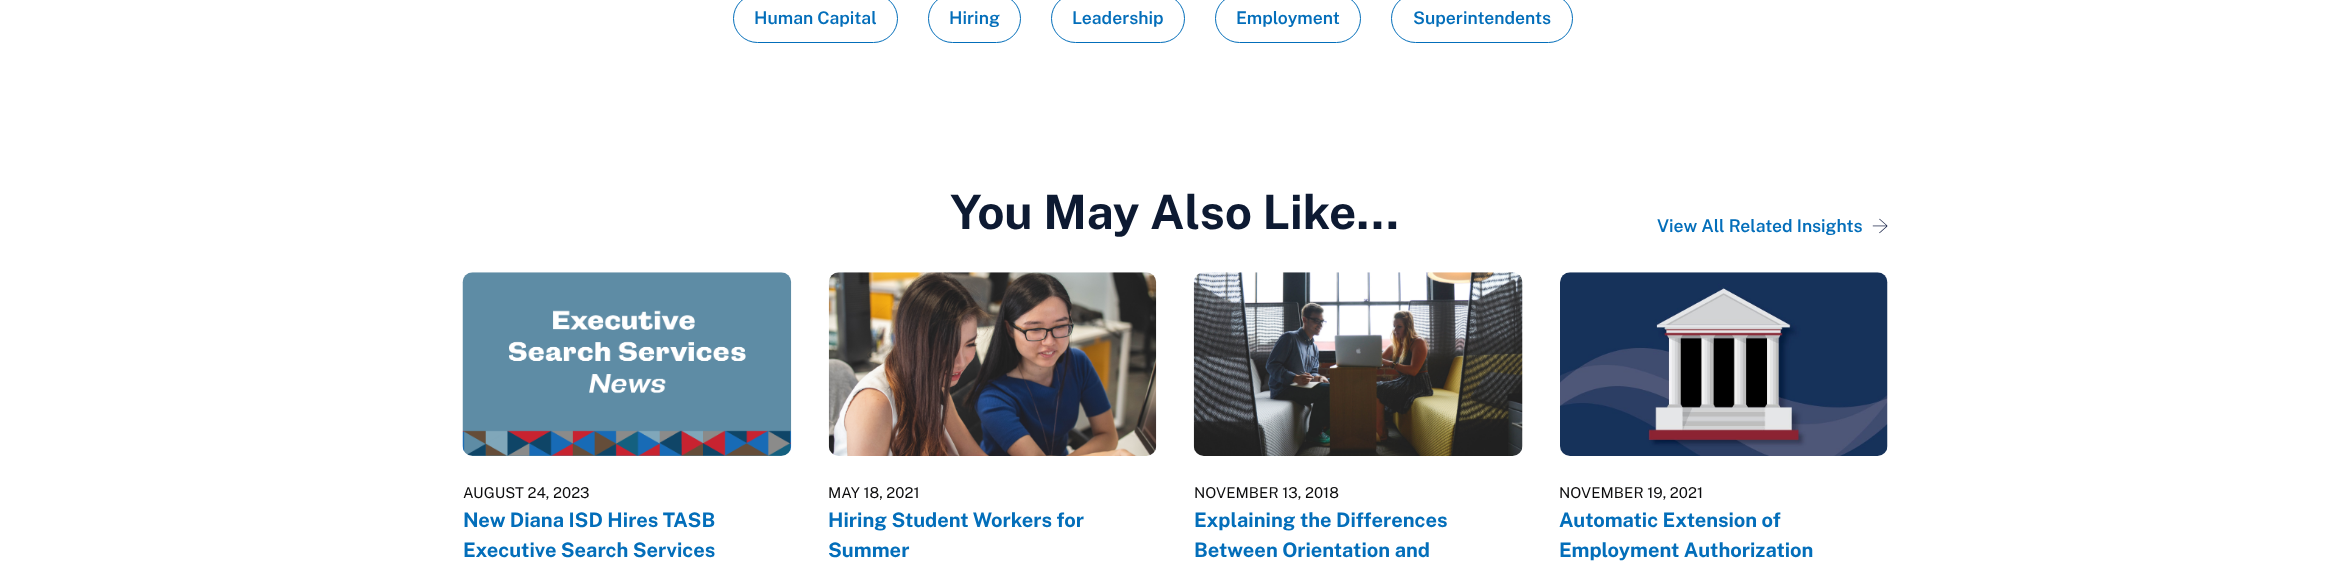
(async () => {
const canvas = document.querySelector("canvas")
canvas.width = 2349
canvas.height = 566
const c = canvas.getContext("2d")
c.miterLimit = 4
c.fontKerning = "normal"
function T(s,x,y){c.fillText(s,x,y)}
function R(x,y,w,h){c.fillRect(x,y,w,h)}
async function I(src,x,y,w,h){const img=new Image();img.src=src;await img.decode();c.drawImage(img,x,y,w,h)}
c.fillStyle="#fff"
R(0,0,2349,566)
c.beginPath()
c.roundRect(733.5,-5.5,164,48,24)
c.strokeStyle="#036eba"
c.stroke()
c.font="600 17.5px Public Sans"
c.fillStyle="#036eba"
T("Human Capital",754,24)
c.beginPath()
c.roundRect(928.5,-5.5,92,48,24)
c.stroke()
T("Hiring",949,24)
c.beginPath()
c.roundRect(1051.5,-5.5,133,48,24)
c.stroke()
T("Leadership",1072,24)
c.beginPath()
c.roundRect(1215.5,-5.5,145,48,24)
c.stroke()
T("Employment",1236,24)
c.beginPath()
c.roundRect(1391.5,-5.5,181,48,24)
c.stroke()
T("Superintendents",1413,24)
c.font="bold 47.5px Public Sans"
c.fillStyle="#0d1a32"
T("You May Also Like…",950,229)
c.font="600 17.5px Public Sans"
c.fillStyle="#036eba"
T("View All Related Insights",1657,232)
await I("1.png",1872,218,16,16)
await I("2.png",462,272,330,184)
c.font="15px Public Sans"
c.fillStyle="#0c0c0d"
T("AUGUST 24, 2023",463,498)
c.font="bold 20px Public Sans"
c.fillStyle="#036eba"
T("New Diana ISD Hires TASB",463,527)
T("Executive Search Services",463,557)
await I("3.png",828,272,329,184)
c.font="15px Public Sans"
c.fillStyle="#0c0c0d"
T("MAY 18, 2021",828,498)
c.font="bold 20px Public Sans"
c.fillStyle="#036eba"
T("Hiring Student Workers for",828,527)
T("Summer",828,557)
await I("4.png",1193,272,330,184)
c.font="15px Public Sans"
c.fillStyle="#0c0c0d"
T("NOVEMBER 13, 2018",1194,498)
c.font="bold 20px Public Sans"
c.fillStyle="#036eba"
T("Explaining the Differences",1194,527)
T("Between Orientation and",1194,557)
await I("5.png",1560,272,328,184)
c.font="15px Public Sans"
c.fillStyle="#0c0c0d"
T("NOVEMBER 19, 2021",1559,498)
c.font="bold 20px Public Sans"
c.fillStyle="#036eba"
T("Automatic Extension of",1559,527)
T("Employment Authorization",1559,557)
})()
